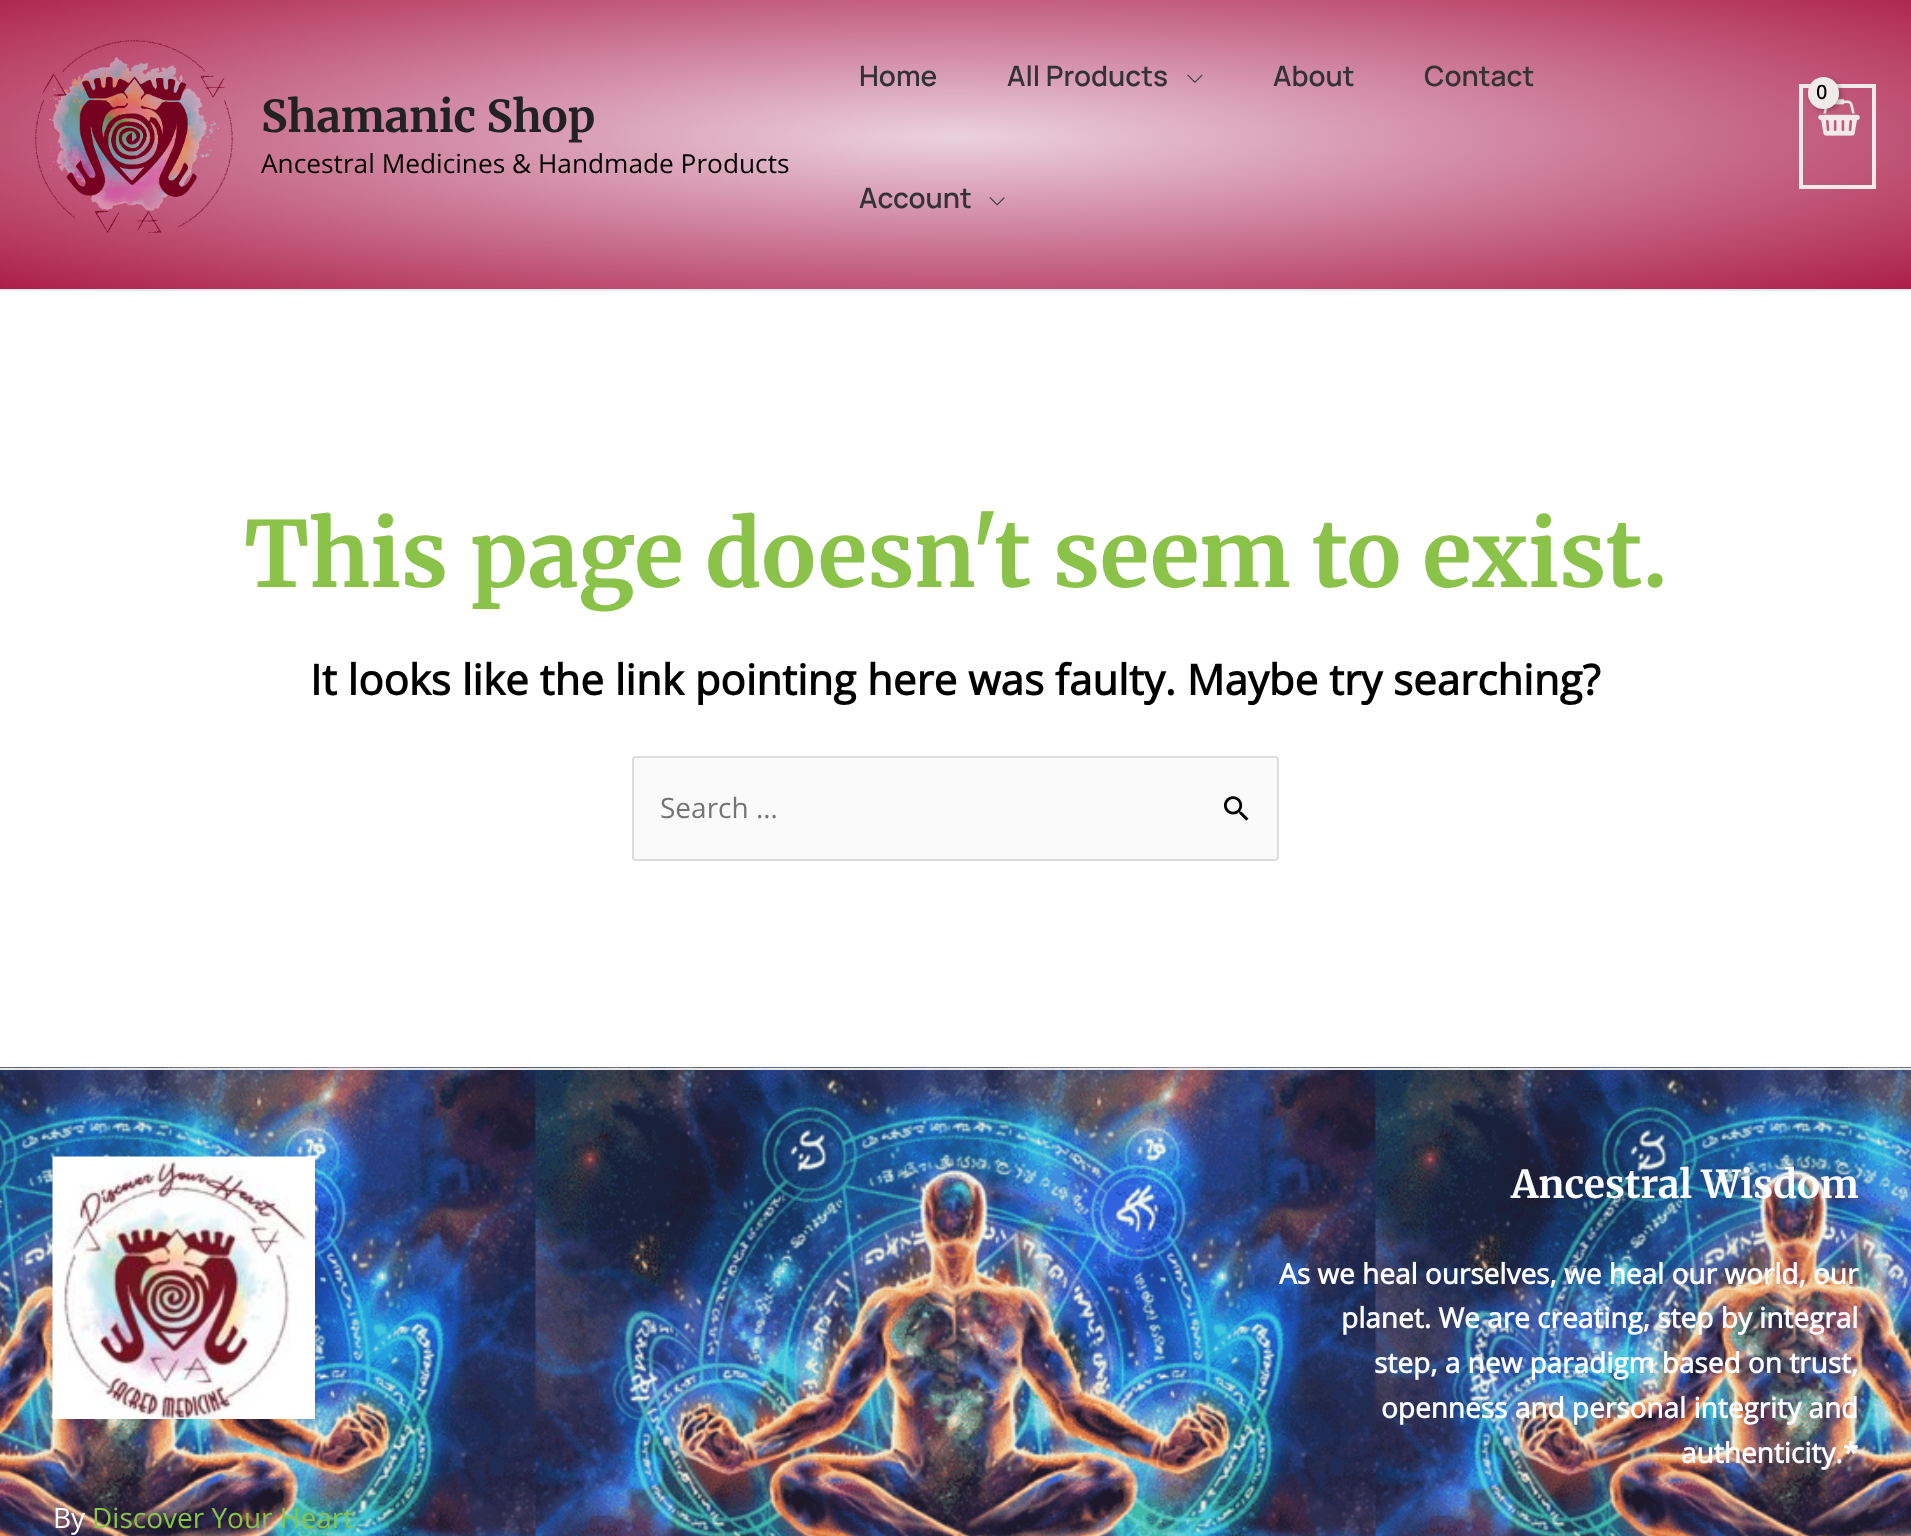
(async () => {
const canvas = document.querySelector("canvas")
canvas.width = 1911
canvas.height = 1536
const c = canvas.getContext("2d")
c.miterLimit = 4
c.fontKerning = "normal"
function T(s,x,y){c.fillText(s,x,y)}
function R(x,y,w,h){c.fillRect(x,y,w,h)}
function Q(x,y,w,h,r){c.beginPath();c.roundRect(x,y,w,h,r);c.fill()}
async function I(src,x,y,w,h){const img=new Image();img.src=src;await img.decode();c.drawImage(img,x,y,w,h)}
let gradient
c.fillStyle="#fff"
R(0,0,1911,1536)
gradient = c.createRadialGradient(956,860.87,0,956,860.87,1351)
gradient.addColorStop(0,"#ebd1de")
gradient.addColorStop(1,"#ac1e4b")
c.fillStyle = gradient
c.beginPath()
c.rect(0,0,1911,289)
c.save()
c.clip()
c.scale(1,215 / 1351)
c.fillRect(0,0,1911,9652)
c.restore()
c.fillStyle="#eaeaea"
R(0,289,1911,2)
await I("1.png",35,40,198,193)
c.font="300 43.75px Merriweather"
c.fillStyle="#222"
T("Shamanic Shop",261,132)
c.font="26.25px Open Sans"
c.fillStyle="#000"
T("Ancestral Medicines & Handmade Products",261,173)
c.font="200 28px Manrope"
c.fillStyle="#333"
T("Home",859,86)
T("All Products",1007,86)
await I("2.png",1187,74,16,9)
T("About",1273,86)
T("Contact",1424,86)
T("Account",859,208)
await I("3.png",989,197,16,9)
c.strokeStyle="#f1eaea"
c.lineWidth=4
c.strokeRect(1801,86,73,101)
await I("4.png",1818,99,42,37)
c.fillStyle="#0000004d"
c.filter="blur(2.5px)"
c.beginPath()
c.roundRect(1810,79,31,31,15.5)
c.fill()
c.filter="none"
c.fillStyle="#f1eaea"
Q(1808,77,31,32,15.5)
c.letterSpacing="-1px"
c.font="bold 19px Open Sans"
c.fillStyle="#000"
T("0",1816,99)
c.letterSpacing="0px"
c.font="300 91px Merriweather"
c.fillStyle="#8bc34a"
T("This page doesn't seem to exist.",244,587)
c.font="bold 42px Open Sans"
c.fillStyle="#000"
T("It looks like the link pointing here was faulty. Maybe try searching?",310,695)
c.fillStyle="#fafafa"
c.beginPath()
c.roundRect(633,757,645,103,3)
c.fill()
c.strokeStyle="#ddd"
c.lineWidth=2
c.stroke()
c.font="28px Open Sans"
c.fillStyle="#757575"
T("Search …",660,818)
await I("5.png",1223,796,26,25)
await I("6.png",0,1067,1911,469)
c.fillStyle="#e6e6e6"
R(0,1068,1911,2)
c.font="300 38.5px Merriweather"
c.fillStyle="#fbfcff"
T("Ancestral Wisdom",1511,1198)
c.font="bold 28px Open Sans"
T("As we heal ourselves, we heal our world, our",1279,1284)
T("planet. We are creating, step by integral",1341,1328)
T("step, a new paradigm based on trust,",1374,1373)
T("openness and personal integrity and",1381,1418)
T("authenticity.*",1681,1463)
await I("7.png",52,1156,263,263)
c.font="28px Open Sans"
T("By",53,1528)
c.fillStyle="#8bc34a"
T("Discover Your Heart",92,1528)
})()
